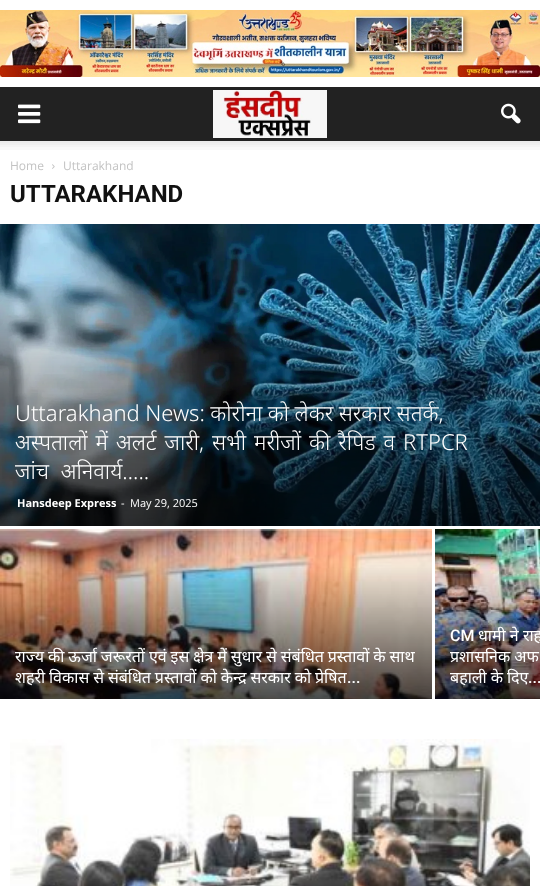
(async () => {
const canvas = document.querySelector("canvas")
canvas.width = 540
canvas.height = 886
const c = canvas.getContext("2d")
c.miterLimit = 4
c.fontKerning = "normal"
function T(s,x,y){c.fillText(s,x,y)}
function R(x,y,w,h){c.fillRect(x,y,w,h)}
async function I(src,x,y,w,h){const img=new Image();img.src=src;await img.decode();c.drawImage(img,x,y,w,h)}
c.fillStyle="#fff"
R(0,0,540,886)
await I("1.png",0,10,540,67)
c.fillStyle="#222"
R(0,87,540,54)
await I("2.png",18,104,23,20)
await I("3.png",213,90,114,48)
await I("4.png",501,103,20,21)
await I("5.png",0,141,540,9)
c.font="12px Open Sans"
c.fillStyle="#c3c3c3"
T("Home",10,170)
await I("6.png",52,164,3,5)
T("Uttarakhand",63,170)
c.font="bold 24px Roboto"
c.fillStyle="#111"
T("UTTARAKHAND",10,202)
await I("7.png",0,224,540,302)
c.wordSpacing="-0.25px"
c.font="300 22px Noto Sans"
c.fillStyle="#fff"
T("Uttarakhand News: कोरोना को लेकर सरकार सतर्क,",15,421)
c.wordSpacing="2.25px"
T("अस्पतालों में अलर्ट जारी, सभी मरीजों की रैपिड व RTPCR",15,450)
c.wordSpacing="6px"
T("जांच अनिवार्य…..",15,479)
c.wordSpacing="0px"
c.font="bold 11px Open Sans"
T("Hansdeep Express",17,507)
c.font="11px Open Sans"
T("-",121,507)
T("May 29, 2025",130,507)
await I("8.png",0,529,432,170)
c.wordSpacing="-0.25px"
c.font="16px Noto Sans"
T("राज्य की ऊर्जा जरूरतों एवं इस क्षेत्र में सुधार से संबंधित प्रस्तावों के साथ",15,662)
T("शहरी विकास से संबंधित प्रस्तावों को केन्द्र सरकार को प्रेषित",15,683)
c.wordSpacing="0px"
c.font="500 16px Roboto"
T("...",347,683)
await I("9.png",435,529,105,170)
T("CM",450,641)
c.font="16px Noto Sans"
T("धामी ने राह",478,641)
c.wordSpacing="-0.25px"
T("प्रशासनिक अफ",450,662)
T("बहाली के दिए",450,683)
c.wordSpacing="0px"
c.font="500 16px Roboto"
T("...",528,683)
await I("10.png",10,739,520,147)
})()
